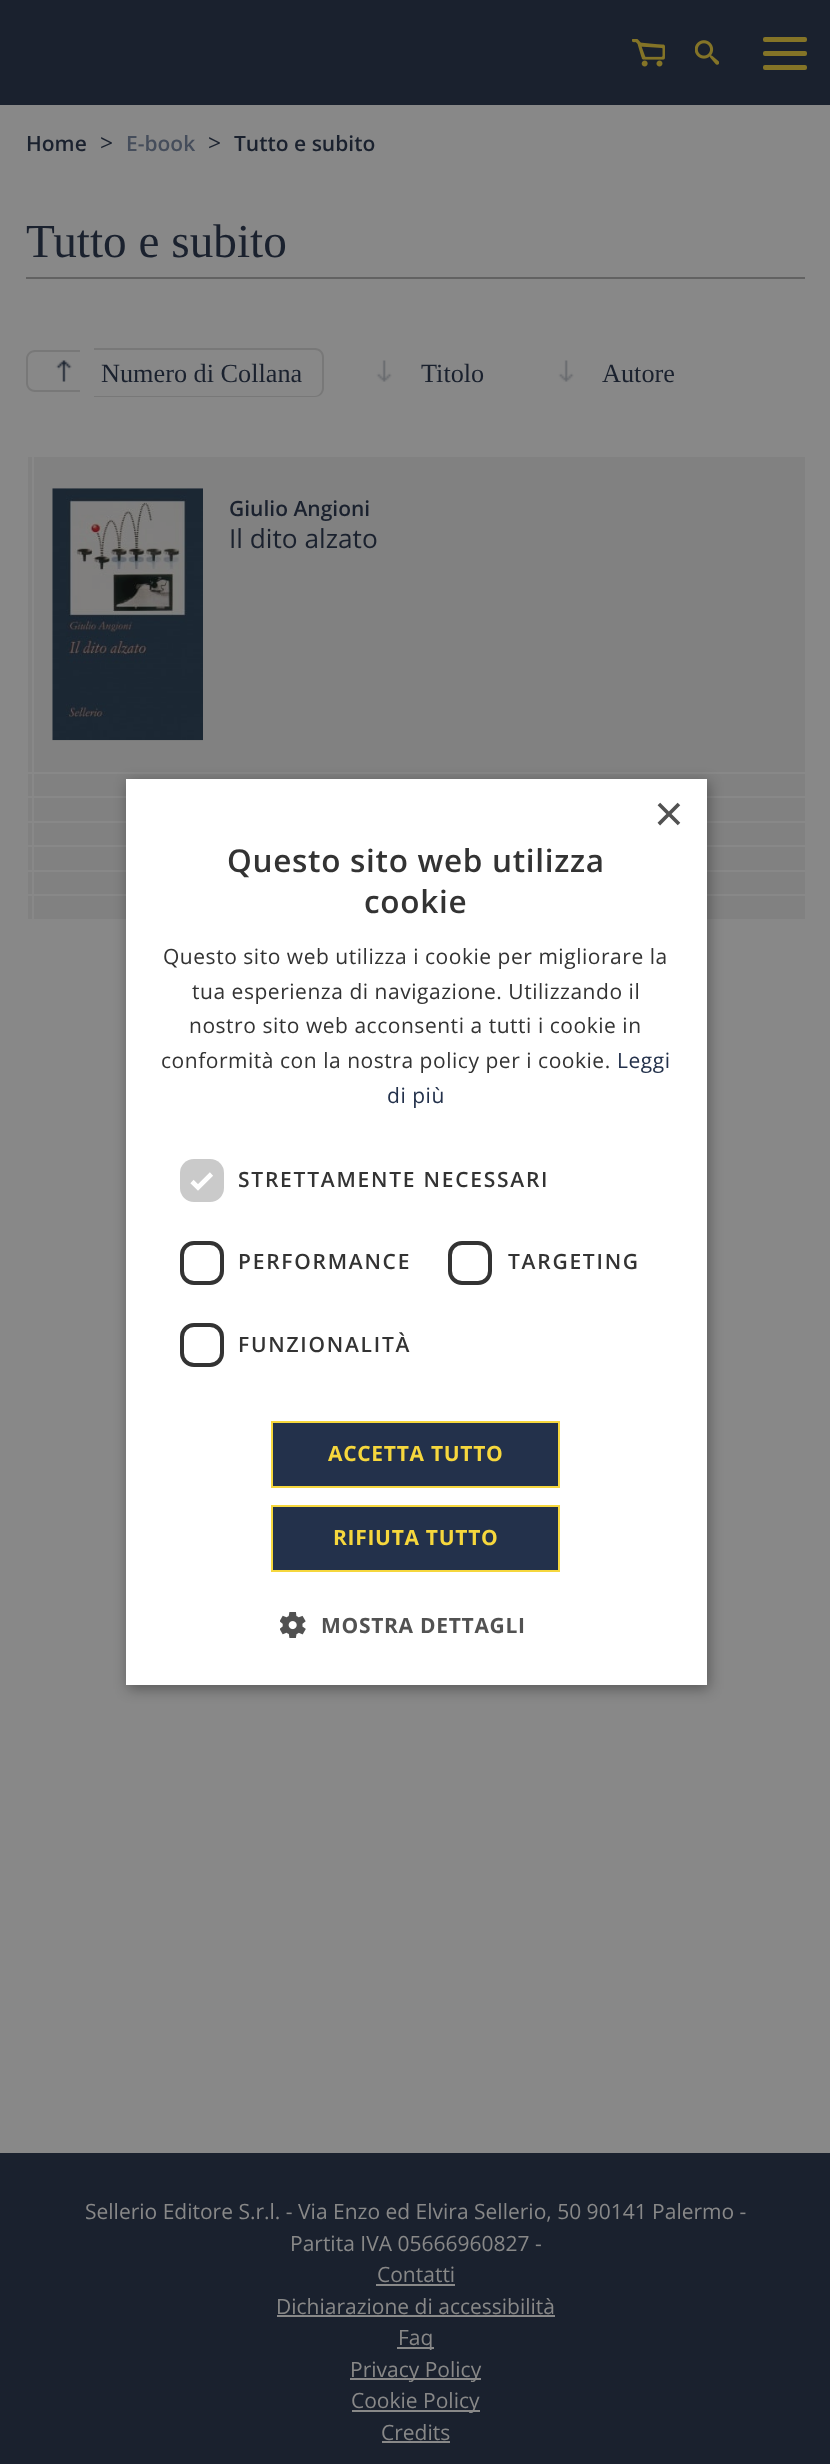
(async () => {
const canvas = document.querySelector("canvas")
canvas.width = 830
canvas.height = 2464
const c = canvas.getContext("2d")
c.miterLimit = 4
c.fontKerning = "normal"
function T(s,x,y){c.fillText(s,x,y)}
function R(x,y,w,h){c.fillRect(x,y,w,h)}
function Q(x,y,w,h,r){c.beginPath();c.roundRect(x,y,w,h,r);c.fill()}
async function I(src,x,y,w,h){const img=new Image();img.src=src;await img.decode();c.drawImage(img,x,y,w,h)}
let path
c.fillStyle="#888"
R(0,0,830,2464)
c.fillStyle="#1a212e"
R(0,0,830,105)
await I("1.png",632,39,33,28)
await I("2.png",695,40,24,25)
c.fillStyle="#847427"
Q(763,51,44,5,2)
Q(763,37,44,5,2)
Q(763,65,44,5,2)
c.font="600 21px Open Sans"
c.fillStyle="#1a212e"
T("Home",26,151)
c.font="23px Open Sans"
T(">",100,151)
c.font="600 21px Open Sans"
c.fillStyle="#454d5b"
T("E-book",126,151)
c.font="23px Open Sans"
c.fillStyle="#1a212e"
T(">",208,151)
c.font="600 21px Open Sans"
T("Tutto e subito",234,151)
c.fillStyle="#626262"
R(26,277,779,2)
c.font="47.25px Liberation Serif"
c.fillStyle="#1a212e"
T("Tutto e subito",26,257)
c.fillStyle="#787878"
path = new Path2D("M35 350h45v42h-45c-5 0-9-4-9-9v-24c0-5 4-9 9-9zm0 2h45v38h-45c-4 0-7-3-7-7v-24c0-4 3-7 7-7z")
c.fill(path,"evenodd")
path = new Path2D("M94 348h221c5 0 9 4 9 9v31c0 5-4 9-9 9h-221zm0 2h221c4 0 7 3 7 7v31c0 4-3 8-7 8h-221z")
c.fill(path,"evenodd")
await I("3.png",55,360,17,22)
c.font="26.25px Liberation Serif"
c.fillStyle="#1a212e"
T("Numero di Collana",101,382)
await I("4.png",376,360,16,22)
T("Titolo",421,382)
await I("5.png",558,360,16,22)
T("Autore",602,382)
c.fillStyle="#818181"
R(28,457,777,462)
c.fillStyle="#888"
R(26,796,779,2)
R(26,772,779,2)
R(26,821,779,2)
R(26,845,779,2)
R(26,870,779,2)
R(26,894,779,2)
R(32,457,2,464)
await I("6.png",52,488,151,253)
c.font="600 21px Open Sans"
c.fillStyle="#1a212e"
T("Giulio Angioni",229,516)
c.font="26.25px Open Sans"
T("Il dito alzato",229,548)
c.fillStyle="#00000059"
c.filter="blur(7px)"
c.beginPath()
c.rect(128,782,581,907)
c.fill()
c.filter="none"
c.fillStyle="#fff"
R(126,779,581,906)
c.font="51px Liberation Sans"
c.fillStyle="#525252"
T("×",654,831)
c.letterSpacing="0.7px"
c.font="600 31.5px Open Sans"
c.fillStyle="#333"
T("Questo sito web utilizza",227,872)
T("cookie",364,913)
c.letterSpacing="0.53px"
c.font="21px Open Sans"
T("Questo sito web utilizza i cookie per migliorare la",163,964)
T("tua esperienza di navigazione. Utilizzando il",192,999)
T("nostro sito web acconsenti a tutti i cookie in",189,1033)
T("conformità con la nostra policy per i cookie.",161,1068)
c.fillStyle="#23314b"
T("Leggi",617,1068)
T("di più",387,1103)
c.fillStyle="#cacaca"
Q(180,1159,44,43,14)
path = new Path2D("M192 1181.5l6 6l13.5-13.5")
c.strokeStyle="#fff"
c.lineWidth=4.6
c.stroke(path)
c.letterSpacing="1.75px"
c.font="600 21px Open Sans"
c.fillStyle="#333"
T("STRETTAMENTE NECESSARI",238,1187)
c.beginPath()
c.roundRect(182,1243,40,40,12)
c.strokeStyle="#333"
c.lineWidth=4
c.stroke()
T("PERFORMANCE",238,1269)
c.beginPath()
c.roundRect(450,1243,40,40,12)
c.stroke()
T("TARGETING",508,1269)
c.beginPath()
c.roundRect(182,1325,40,40,12)
c.stroke()
T("FUNZIONALITÀ",238,1352)
c.fillStyle="#23314b"
c.beginPath()
c.rect(272,1422,287,65)
c.fill()
c.strokeStyle="#f6d73d"
c.lineWidth=2
c.stroke()
c.letterSpacing="0.7px"
c.font="bold 21px Open Sans"
c.fillStyle="#f6d73d"
T("ACCETTA TUTTO",328,1461)
c.fillStyle="#23314b"
c.beginPath()
c.rect(272,1506,287,65)
c.fill()
c.stroke()
c.fillStyle="#f6d73d"
T("RIFIUTA TUTTO",333,1545)
await I("7.png",280,1612,26,26)
c.fillStyle="#525252"
T("MOSTRA DETTAGLI",321,1633)
c.fillStyle="#1a212e"
R(0,2153,830,311)
c.letterSpacing="0px"
c.font="21px Open Sans"
c.fillStyle="#888"
T("Sellerio Editore S.r.l. - Via Enzo ed Elvira Sellerio, 50 90141 Palermo -",85,2219)
T("Partita IVA 05666960827 -",290,2251)
T("Contatti",377,2282)
R(376,2284,79,2)
T("Dichiarazione di accessibilità",276,2314)
R(277,2315,278,2)
R(397,2347,37,2)
T("Faq",398,2345)
R(350,2378,131,2)
T("Privacy Policy",350,2377)
R(352,2410,128,2)
T("Cookie Policy",351,2408)
T("Credits",381,2440)
R(382,2441,68,2)
})()
